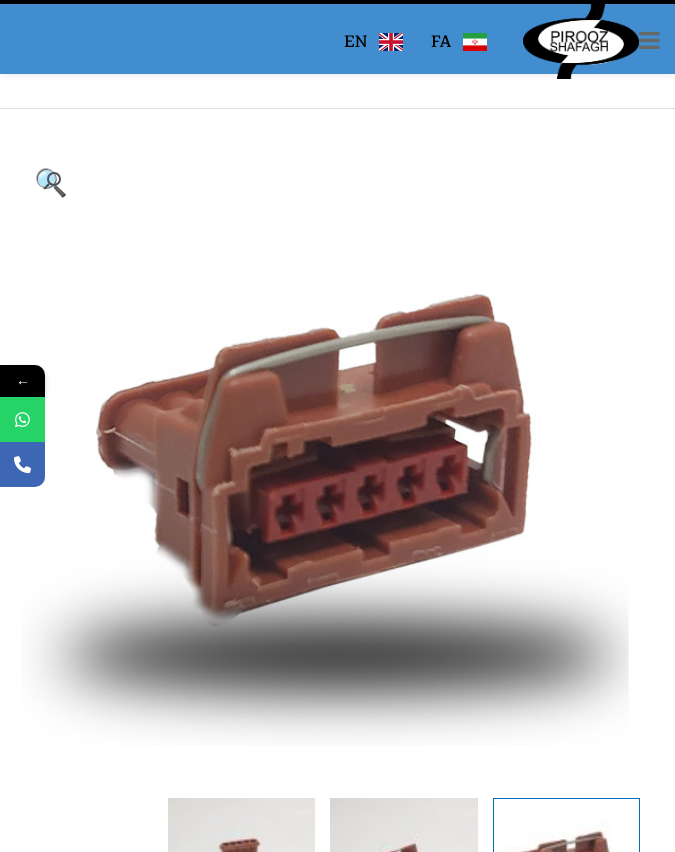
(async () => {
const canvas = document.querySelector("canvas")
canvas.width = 675
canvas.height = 852
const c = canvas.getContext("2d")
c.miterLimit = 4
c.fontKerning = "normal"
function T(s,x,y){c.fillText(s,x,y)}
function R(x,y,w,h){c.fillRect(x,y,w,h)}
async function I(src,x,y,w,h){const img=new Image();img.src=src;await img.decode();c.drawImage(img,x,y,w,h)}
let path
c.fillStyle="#fff"
R(0,0,675,852)
c.fillStyle="#0000001a"
c.filter="blur(5px)"
c.beginPath()
c.rect(0,4,675,70)
c.fill()
c.filter="none"
c.fillStyle="#000"
R(0,0,675,4)
c.fillStyle="#418dd0"
R(0,4,675,70)
c.font="24px Markazi Text"
c.fillStyle="#000"
T("EN",344,47)
await I("1.png",379,33,24,18)
T("FA",431,47)
await I("2.png",463,33,24,18)
await I("3.png",523,4,116,75)
await I("4.png",639,31,21,18)
c.fillStyle="#ddd"
R(0,108,675,1)
c.font="27px Noto Color Emoji"
c.fillStyle="#007bff"
T("🔍",34,192)
c.beginPath()
c.arc(54,179,6,0,7)
c.strokeStyle="#4b4f58"
c.lineWidth=2
c.stroke()
c.fillStyle="#4b4f58"
path = new Path2D("M49.5 183.5c1 1-1.5 3-2 3.5c-.5 .5-2.5 3.5-3.5 2c-1.5-1 1.5-2.5 2-3.5c.5-.5 2.5-3 3.5-2z")
c.fill(path)
await I("5.png",21,293,608,453)
await I("6.png",168,798,147,54)
await I("7.png",330,798,148,54)
await I("8.png",505,821,106,31)
c.strokeStyle="#0170b9"
c.lineWidth=1
c.strokeRect(493.5,798.5,146,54)
c.fillStyle="#00000029"
c.filter="blur(3px)"
c.beginPath()
c.roundRect(0,368,45,32,10)
c.fill()
c.filter="none"
c.fillStyle="#000"
c.beginPath()
c.roundRect(0,365,45,32,[0,10,0,0])
c.fill()
c.font="14px Liberation Serif"
c.fillStyle="#fff"
T("←",16,385)
c.fillStyle="#26d367"
R(0,397,45,45)
await I("9.png",15,412,15,15)
c.fillStyle="#3d67b5"
c.beginPath()
c.roundRect(0,442,45,45,[0,0,10,0])
c.fill()
await I("10.png",14,456,17,18)
})()
